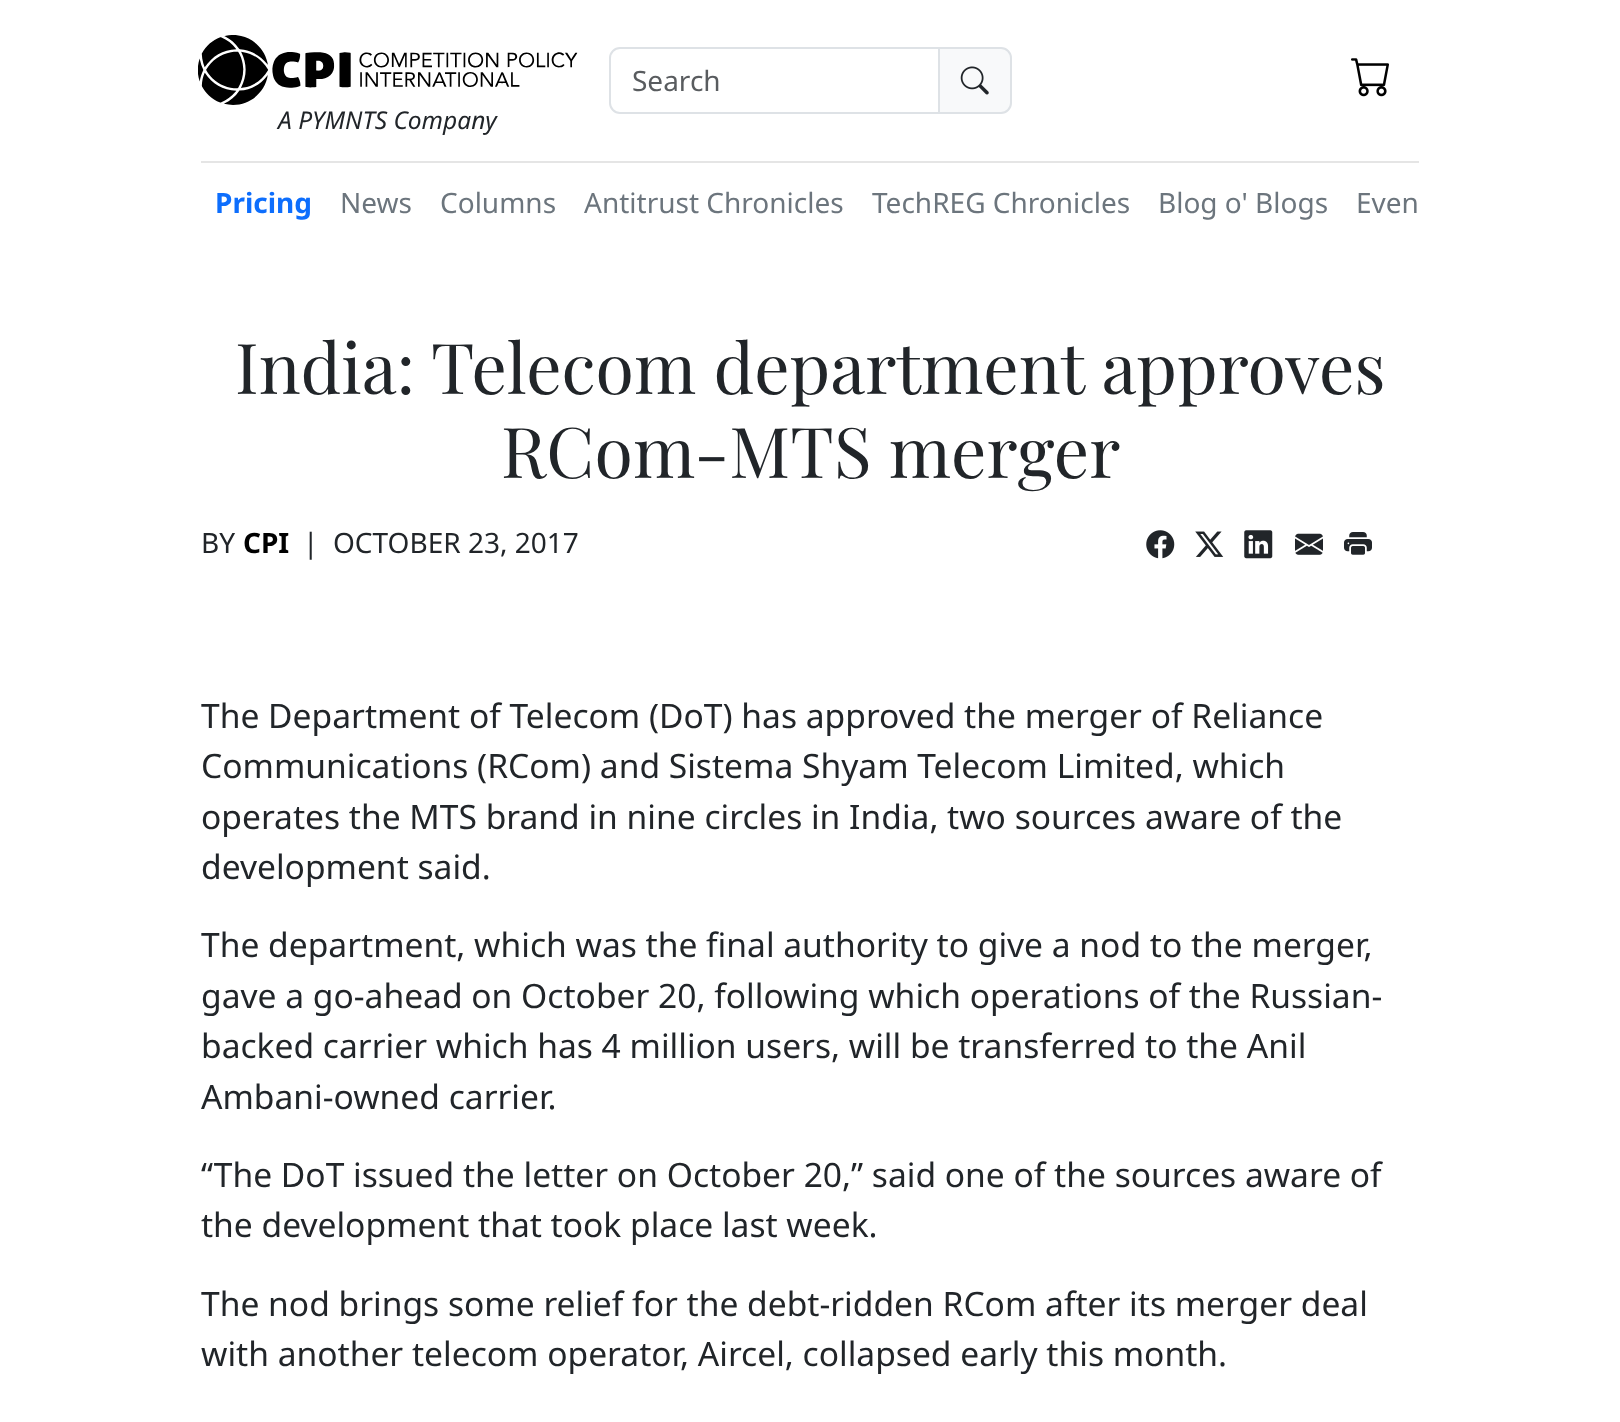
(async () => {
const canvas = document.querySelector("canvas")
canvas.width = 1620
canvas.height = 1422
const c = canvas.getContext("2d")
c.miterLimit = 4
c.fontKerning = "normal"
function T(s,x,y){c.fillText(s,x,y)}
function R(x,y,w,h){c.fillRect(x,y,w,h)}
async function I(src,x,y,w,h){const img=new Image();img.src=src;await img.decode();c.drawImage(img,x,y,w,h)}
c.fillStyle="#fff"
R(0,0,1620,1422)
c.fillStyle="#e5e5e5"
R(201,161,1218,2)
c.fillStyle="#f8f9fa"
c.beginPath()
c.roundRect(939,48,72,65,[0,10,10,0])
c.fill()
c.strokeStyle="#dee2e6"
c.lineWidth=2
c.stroke()
c.beginPath()
c.roundRect(610,48,329,65,[10,0,0,10])
c.stroke()
c.font="28px Noto Sans"
c.fillStyle="#595c5f"
T("Search",632,91)
await I("1.png",960,66,29,29)
await I("2.png",1351,58,38,39)
await I("3.png",198,35,380,70)
c.font="italic 24.5px Noto Sans"
c.fillStyle="#212529"
T("A PYMNTS Company",278,129)
c.font="bold 28px Noto Sans"
c.fillStyle="#0d6efd"
T("Pricing",215,213)
c.font="28px Noto Sans"
c.fillStyle="#6c757d"
T("News",340,213)
T("Columns",440,213)
T("Antitrust Chronicles",584,213)
T("TechREG Chronicles",872,213)
T("Blog o' Blogs",1158,213)
T("Even",1356,213)
c.font="70px Playfair Display"
c.fillStyle="#212529"
T("India: Telecom department approves",235,394)
T("RCom-MTS merger",501,478)
c.font="28px Noto Sans"
T("BY",201,553)
c.font="bold 28px Noto Sans"
c.fillStyle="#000"
T("CPI",243,553)
c.font="28px Noto Sans"
c.fillStyle="#212529"
T("|",303,553)
T("OCTOBER 23, 2017",333,553)
await I("4.png",1146,530,29,29)
await I("5.png",1195,531,29,26)
await I("6.png",1244,530,29,29)
await I("7.png",1295,533,28,22)
await I("8.png",1344,532,28,23)
c.font="33.6px Noto Sans"
T("The Department of Telecom (DoT) has approved the merger of Reliance",201,728)
T("Communications (RCom) and Sistema Shyam Telecom Limited, which",201,778)
T("operates the MTS brand in nine circles in India, two sources aware of the",201,829)
T("development said.",201,879)
T("The department, which was the final authority to give a nod to the merger,",201,957)
T("gave a go-ahead on October 20, following which operations of the Russian-",201,1008)
T("backed carrier which has 4 million users, will be transferred to the Anil",201,1058)
T("Ambani-owned carrier.",201,1109)
T("“The DoT issued the letter on October 20,” said one of the sources aware of",201,1187)
T("the development that took place last week.",201,1237)
T("The nod brings some relief for the debt-ridden RCom after its merger deal",201,1316)
T("with another telecom operator, Aircel, collapsed early this month.",201,1366)
})()
